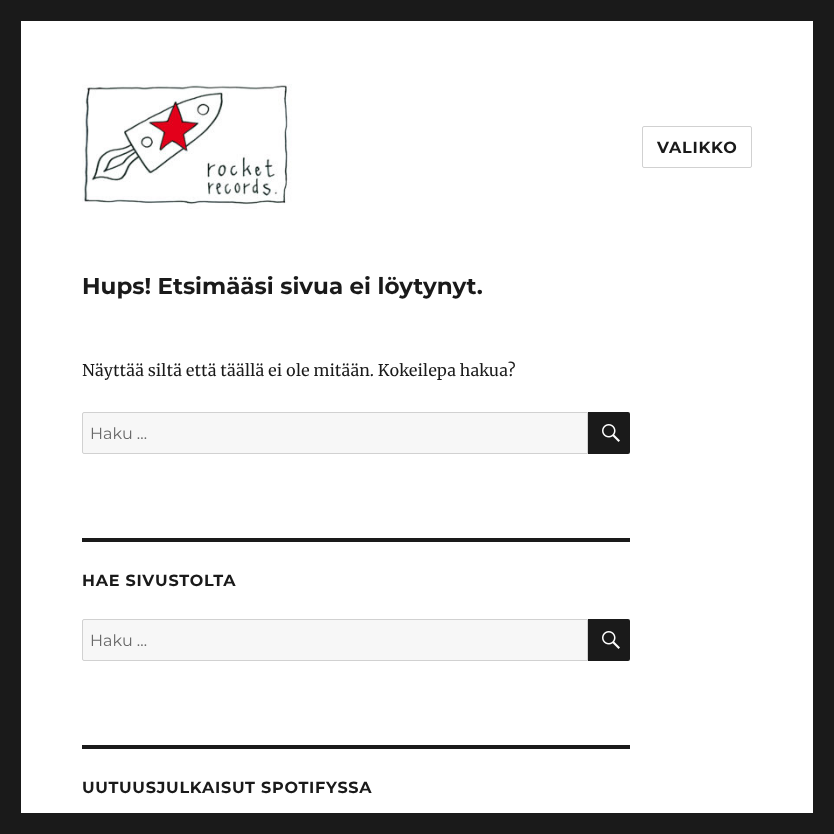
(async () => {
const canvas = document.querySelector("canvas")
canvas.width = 834
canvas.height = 834
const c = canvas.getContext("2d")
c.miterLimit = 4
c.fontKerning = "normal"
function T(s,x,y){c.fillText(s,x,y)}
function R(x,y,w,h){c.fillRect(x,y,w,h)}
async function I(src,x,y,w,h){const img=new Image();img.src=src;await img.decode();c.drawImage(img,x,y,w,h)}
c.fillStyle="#1a1a1a"
R(0,0,834,834)
c.fillStyle="#fff"
R(21,21,792,792)
await I("1.png",82,84,210,125)
c.beginPath()
c.roundRect(642.5,126.5,109,41,1.5)
c.strokeStyle="#d1d1d1"
c.stroke()
c.letterSpacing="0.75px"
c.font="100 16px Montserrat"
c.fillStyle="#1a1a1a"
T("VALIKKO",657,153)
c.letterSpacing="0px"
c.font="100 23px Montserrat"
T("Hups! Etsimääsi sivua ei löytynyt.",82,294)
c.font="16px Merriweather"
T("Näyttää siltä että täällä ei ole mitään. Kokeilepa hakua?",82,376)
c.fillStyle="#f7f7f7"
c.beginPath()
c.roundRect(82.5,412.5,505,41,[1.5,0,0,1.5])
c.fill()
c.stroke()
c.font="100 16px 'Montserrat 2'"
c.fillStyle="#686868"
T("Haku …",90,439)
c.fillStyle="#1a1a1a"
c.beginPath()
c.roundRect(588,412,42,42,[0,2,2,0])
c.fill()
await I("2.png",602,424,18,18)
R(82,538,548,4)
c.letterSpacing="0.75px"
c.font="100 16px Montserrat"
T("HAE SIVUSTOLTA",82,586)
c.fillStyle="#f7f7f7"
c.beginPath()
c.roundRect(82.5,619.5,505,41,[1.5,0,0,1.5])
c.fill()
c.stroke()
c.letterSpacing="0px"
c.font="100 16px 'Montserrat 2'"
c.fillStyle="#686868"
T("Haku …",90,646)
c.fillStyle="#1a1a1a"
c.beginPath()
c.roundRect(588,619,42,42,[0,2,2,0])
c.fill()
await I("2.png",602,631,18,18)
R(82,745,548,4)
c.letterSpacing="0.75px"
c.font="100 16px Montserrat"
T("UUTUUSJULKAISUT SPOTIFYSSA",82,793)
})()
